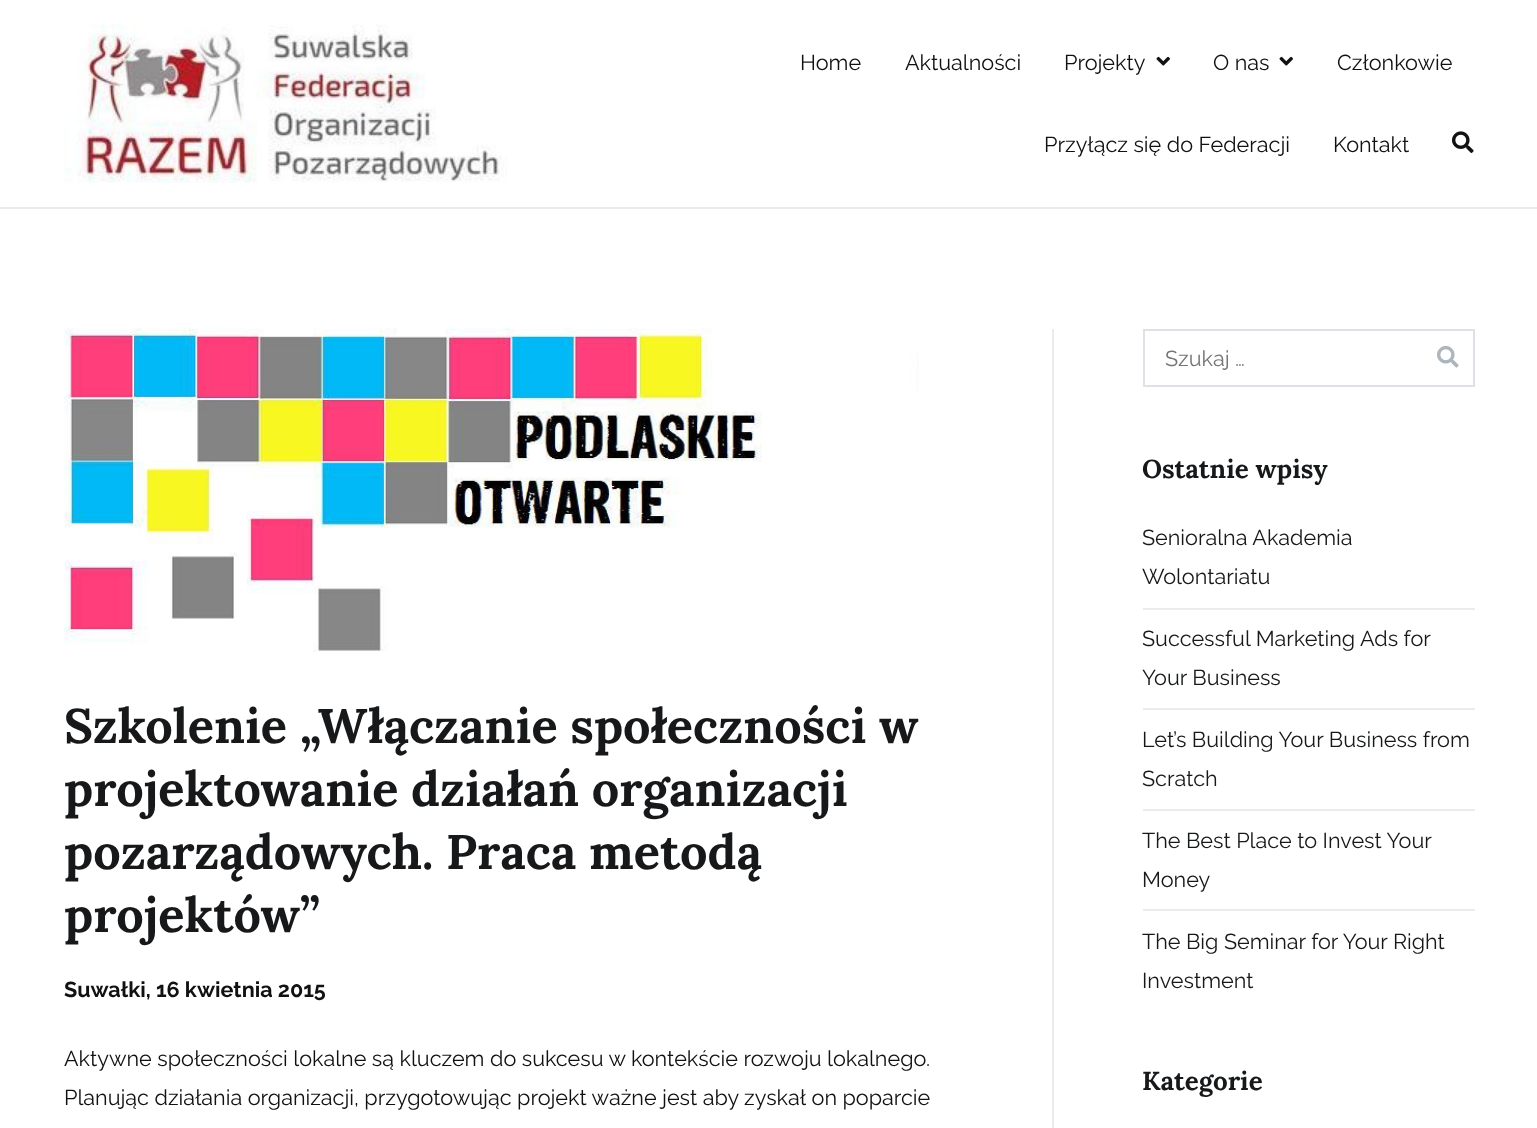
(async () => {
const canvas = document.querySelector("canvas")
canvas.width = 1537
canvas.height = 1128
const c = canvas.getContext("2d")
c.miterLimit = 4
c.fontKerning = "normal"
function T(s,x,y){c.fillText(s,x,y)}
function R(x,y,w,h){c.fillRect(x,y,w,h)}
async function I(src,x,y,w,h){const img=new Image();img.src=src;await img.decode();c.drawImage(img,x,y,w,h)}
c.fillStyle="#fff"
R(0,0,1537,1128)
c.fillStyle="#e9ecef"
R(0,207,1537,2)
await I("1.png",64,24,443,159)
c.font="21.6px Raleway"
c.fillStyle="#111"
T("Home",800,70)
T("Aktualności",905,70)
T("Projekty",1064,70)
await I("2.png",1156,56,14,10)
T("O nas",1213,70)
await I("2.png",1279,56,14,10)
T("Członkowie",1337,70)
T("Przyłącz się do Federacji",1044,152)
T("Kontakt",1333,152)
await I("3.png",1452,131,22,22)
await I("4.png",64,328,855,324)
c.font="bold 48.6px Lora"
c.fillStyle="#16181a"
T("Szkolenie „Włączanie społeczności w",64,743)
T("projektowanie działań organizacji",64,806)
T("pozarządowych. Praca metodą",64,869)
T("projektów”",64,932)
c.font="bold 21.6px Raleway"
c.fillStyle="#111"
T("Suwałki, 16 kwietnia 2015",64,997)
c.font="21.6px Raleway"
T("Aktywne społeczności lokalne są kluczem do sukcesu w kontekście rozwoju lokalnego.",64,1066)
T("Planując działania organizacji, przygotowując projekt ważne jest aby zyskał on poparcie",64,1105)
c.fillStyle="#e9ecef"
R(1052,329,2,799)
c.strokeStyle="#dee2e6"
c.lineWidth=2
c.strokeRect(1144,330,330,56)
c.fillStyle="#757575"
T("Szukaj …",1165,366)
await I("5.png",1437,346,22,22)
c.font="bold 26px Lora"
c.fillStyle="#16181a"
T("Ostatnie wpisy",1142,478)
c.fillStyle="#e9ecef"
R(1143,608,332,2)
c.font="21.6px Raleway"
c.fillStyle="#16181a"
T("Senioralna Akademia",1142,545)
T("Wolontariatu",1142,584)
c.fillStyle="#e9ecef"
R(1143,708,332,2)
c.fillStyle="#16181a"
T("Successful Marketing Ads for",1142,646)
T("Your Business",1142,685)
c.fillStyle="#e9ecef"
R(1143,809,332,2)
c.fillStyle="#16181a"
T("Let’s Building Your Business from",1142,747)
T("Scratch",1142,786)
c.fillStyle="#e9ecef"
R(1143,909,332,2)
c.fillStyle="#16181a"
T("The Best Place to Invest Your",1142,848)
T("Money",1142,887)
T("The Big Seminar for Your Right",1142,949)
T("Investment",1142,988)
c.font="bold 26px Lora"
T("Kategorie",1142,1090)
})()
